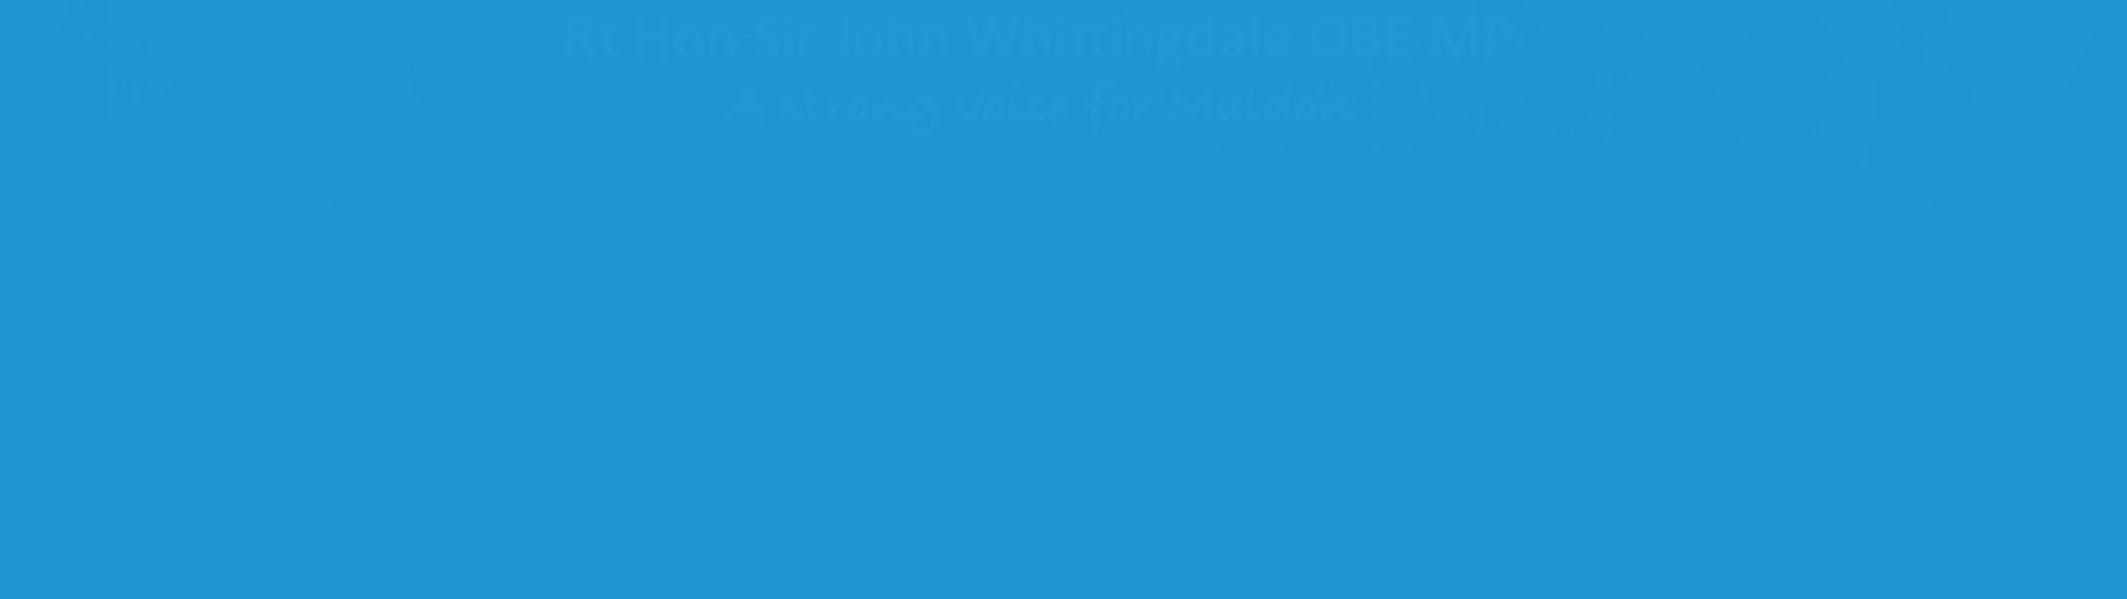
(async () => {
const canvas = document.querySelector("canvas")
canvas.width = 2127
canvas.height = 599
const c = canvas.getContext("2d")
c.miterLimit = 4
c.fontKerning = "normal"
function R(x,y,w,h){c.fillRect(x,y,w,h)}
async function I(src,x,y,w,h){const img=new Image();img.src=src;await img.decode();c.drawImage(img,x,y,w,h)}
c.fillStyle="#2196d1"
R(0,0,2127,599)
await I("1.png",0,0,2127,165)
await I("2.png",322,196,14,9)
await I("3.png",1914,191,21,22)
})()
